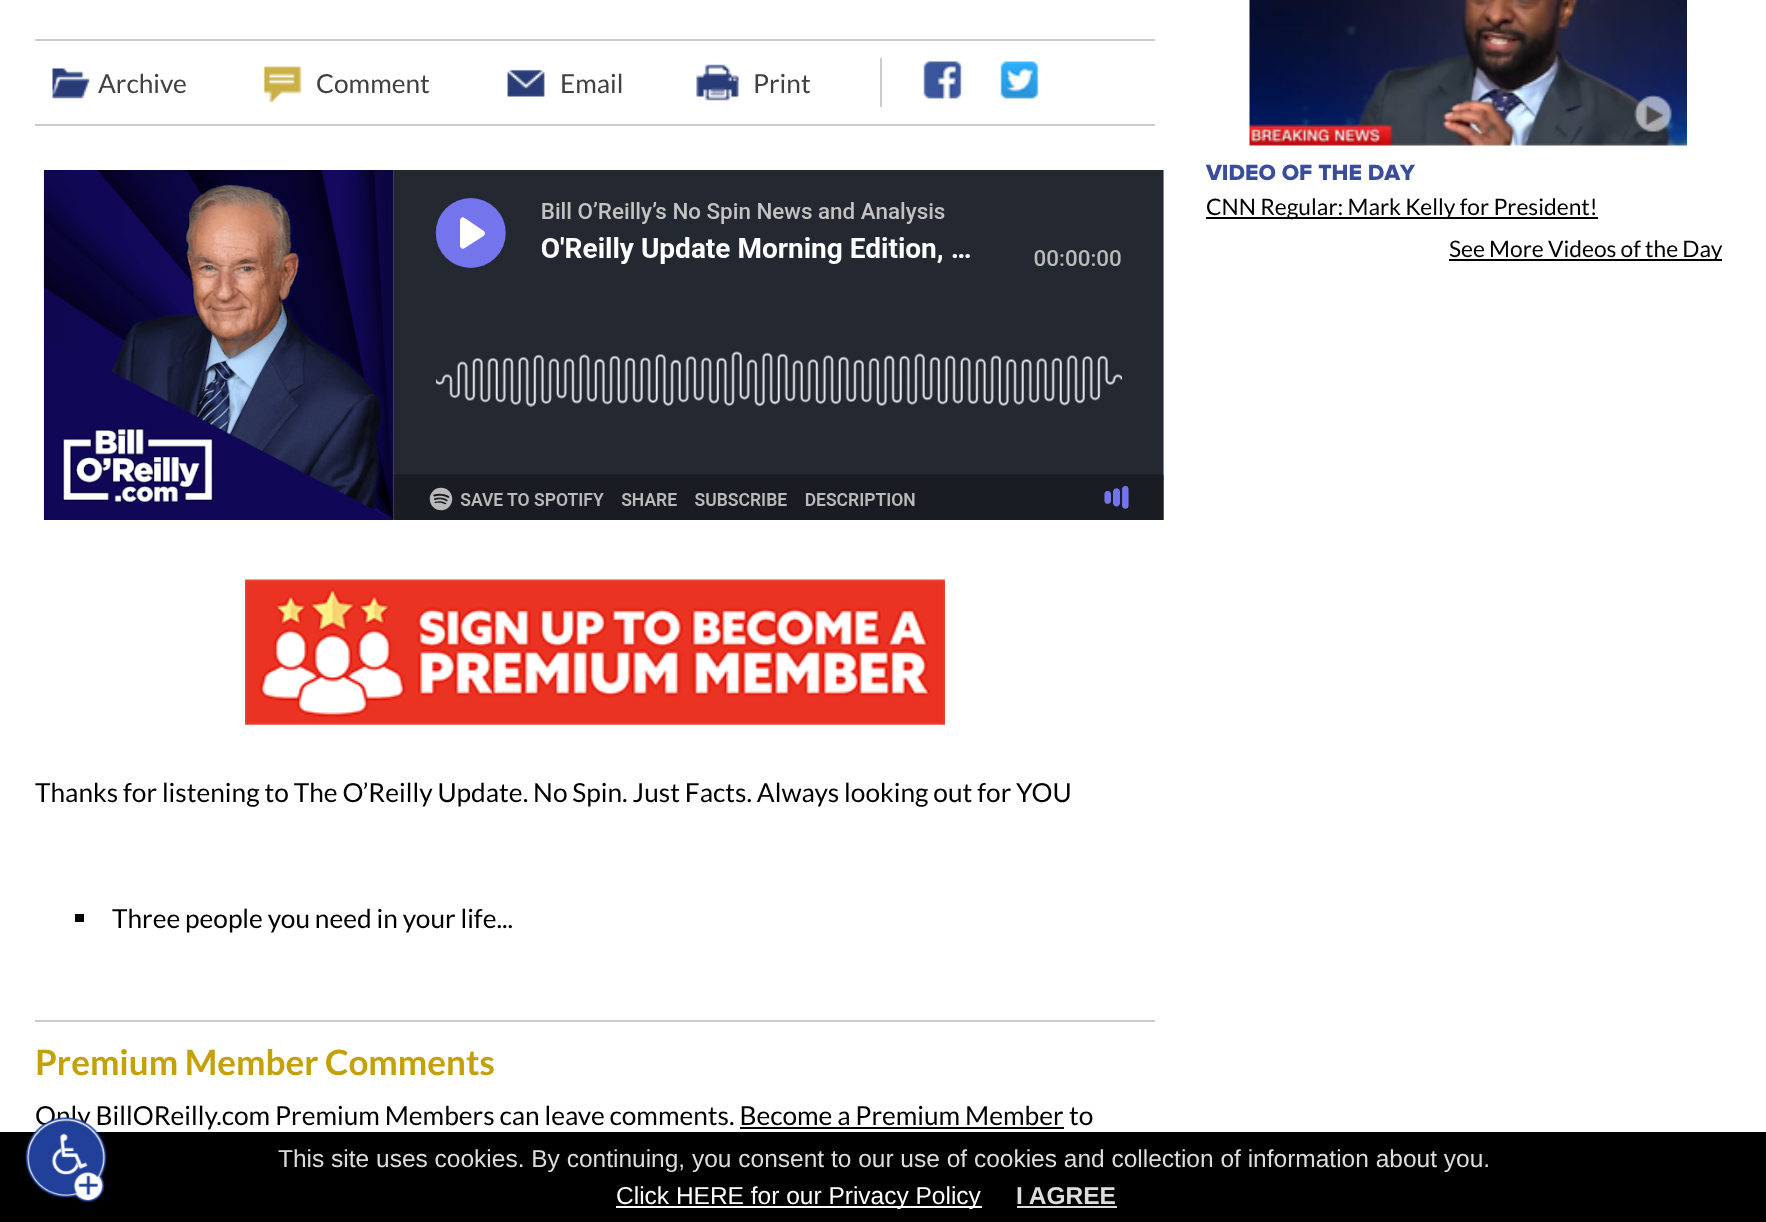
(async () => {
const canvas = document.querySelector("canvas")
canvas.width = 1766
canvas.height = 1222
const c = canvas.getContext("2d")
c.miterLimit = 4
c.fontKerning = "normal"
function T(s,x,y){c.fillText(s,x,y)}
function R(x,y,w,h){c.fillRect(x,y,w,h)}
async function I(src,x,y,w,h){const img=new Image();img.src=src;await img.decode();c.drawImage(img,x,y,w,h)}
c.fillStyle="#fff"
R(0,0,1766,1222)
c.fillStyle="#ccc"
R(35,39,1120,2)
R(35,124,1120,2)
await I("1.png",52,68,38,31)
c.font="26.25px Lato"
c.fillStyle="#414141"
T("Archive",98,93)
await I("2.png",263,66,39,37)
T("Comment",316,93)
await I("3.png",507,69,38,28)
T("Email",560,93)
await I("4.png",696,64,43,37)
T("Print",753,93)
c.fillStyle="#ccc"
R(880,58,2,49)
await I("5.png",923,61,39,38)
await I("6.png",1000,61,39,38)
await I("7.png",43,170,1121,350)
await I("8.png",245,579,700,146)
c.wordSpacing="-0.2px"
c.fillStyle="#000"
T("Thanks for listening to The O’Reilly Update. No Spin. Just Facts. Always looking out for YOU",35,802)
R(75,914,9,8)
T("Three people you need in your life...",112,928)
c.fillStyle="#ccc"
R(35,1020,1120,2)
c.font="bold 35px Lato"
c.fillStyle="#c4a109"
T("Premium Member Comments",35,1075)
c.font="26.25px Lato"
c.fillStyle="#000"
T("Only BillOReilly.com Premium Members can leave comments. Become a Premium Member",35,1125)
c.wordSpacing="0px"
T("to",1069,1125)
R(740,1127,324,2)
await I("9.png",1249,0,438,146)
await I("10.png",1634,94,38,38)
c.font="800 22.75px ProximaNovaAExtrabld"
c.fillStyle="#394d9c"
T("VIDEO OF THE DAY",1206,180)
c.fillStyle="#000"
R(1206,217,392,2)
c.wordSpacing="-0.2px"
c.font="22.75px Lato"
T("CNN Regular: Mark Kelly for President!",1206,215)
R(1449,259,273,2)
T("See More Videos of the Day",1449,257)
R(0,1132,1766,90)
await I("11.png",25,1117,82,86)
c.wordSpacing="0px"
c.font="24.5px Liberation Sans"
c.fillStyle="#ddd"
T("This site uses cookies. By continuing, you consent to our use of cookies and collection of information about you.",278,1167)
c.fillStyle="#fff"
R(616,1206,366,2)
T("Click HERE for our Privacy Policy",616,1204)
c.font="bold 24.5px Liberation Sans"
c.fillStyle="#ddd"
T("I AGREE",1016,1204)
R(1017,1206,100,2)
})()
